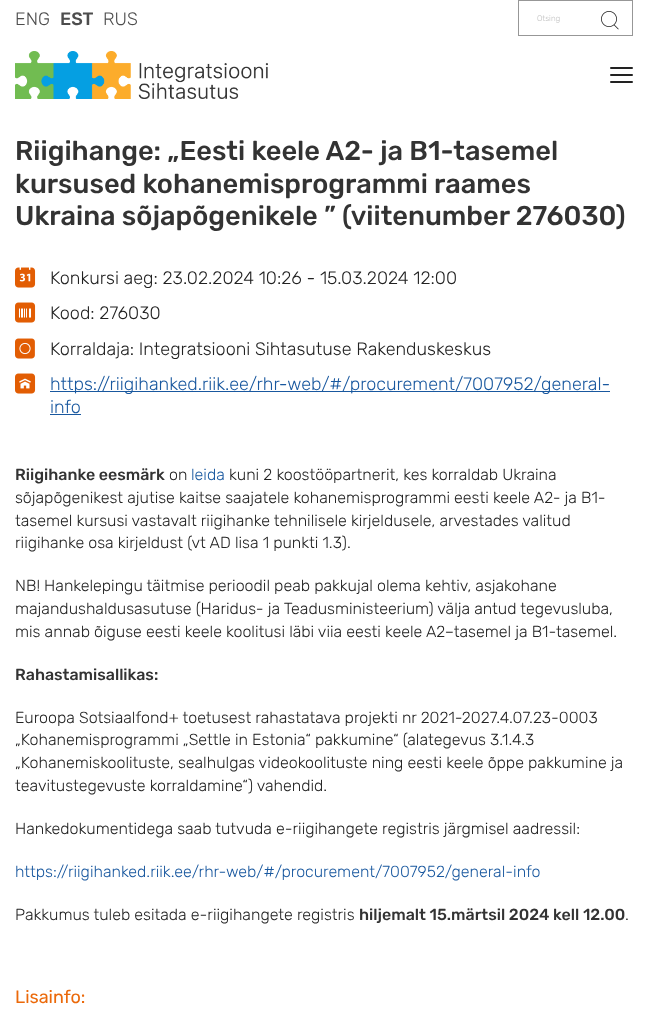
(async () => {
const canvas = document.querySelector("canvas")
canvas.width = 648
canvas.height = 1028
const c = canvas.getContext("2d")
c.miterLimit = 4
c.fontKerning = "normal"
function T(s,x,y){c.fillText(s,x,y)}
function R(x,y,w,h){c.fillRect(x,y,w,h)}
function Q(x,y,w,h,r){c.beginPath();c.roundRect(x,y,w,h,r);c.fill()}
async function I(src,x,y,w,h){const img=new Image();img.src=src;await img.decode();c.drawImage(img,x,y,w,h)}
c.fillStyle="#fff"
R(0,0,648,1028)
c.font="300 18px Rubik"
c.fillStyle="#4d4d4d"
T("ENG",15,25)
c.font="500 18px Rubik"
T("EST",60,25)
c.font="300 18px Rubik"
T("RUS",103,25)
c.strokeStyle="#979797"
c.strokeRect(518.5,.5,114,35)
c.font="300 8px Rubik"
c.fillStyle="#c1c1c1"
T("Otsing",537,21)
await I("1.png",601,11,18,19)
await I("2.png",15,51,253,48)
c.fillStyle="#222"
Q(610,67,23,2,1)
Q(610,74,23,2,1)
Q(610,81,23,2,1)
c.font="500 27.2px Rubik"
c.fillStyle="#333"
T("Riigihange: „Eesti keele A2- ja B1-tasemel",15,160)
T("kursused kohanemisprogrammi raames",15,193)
T("Ukraina sõjapõgenikele ” (viitenumber 276030)",15,225)
await I("3.png",15,267,21,21)
c.font="300 18px Rubik"
c.fillStyle="#222"
T("Konkursi aeg: 23.02.2024 10:26 - 15.03.2024 12:00",50,284)
await I("4.png",15,302,21,21)
T("Kood: 276030",50,319)
await I("5.png",15,338,20,21)
T("Korraldaja: Integratsiooni Sihtasutuse Rakenduskeskus",50,355)
await I("6.png",15,373,21,21)
c.fillStyle="#19589f"
R(50,391,560,1)
T("https://riigihanked.riik.ee/rhr-web/#/procurement/7007952/general-",50,390)
T("info",50,413)
R(50,414,31,1)
c.font="500 16px Rubik"
c.fillStyle="#333"
T("Riigihanke eesmärk",15,480)
c.font="300 16px Rubik"
c.fillStyle="#222"
T("on",169,480)
c.fillStyle="#19589f"
T("leida",191,480)
c.fillStyle="#222"
T("kuni 2 koostööpartnerit, kes korraldab Ukraina",229,480)
T("sõjapõgenikest ajutise kaitse saajatele kohanemisprogrammi eesti keele A2- ja B1-",15,503)
T("tasemel kursusi vastavalt riigihanke tehnilisele kirjeldusele, arvestades valitud",15,526)
T("riigihanke osa kirjeldust (vt AD lisa 1 punkti 1.3).",15,548)
T("NB! Hankelepingu täitmise perioodil peab pakkujal olema kehtiv, asjakohane",15,591)
T("majandushaldusasutuse (Haridus- ja Teadusministeerium) välja antud tegevusluba,",15,614)
T("mis annab õiguse eesti keele koolitusi läbi viia eesti keele A2–tasemel ja B1-tasemel.",15,637)
c.font="500 16px Rubik"
c.fillStyle="#333"
T("Rahastamisallikas:",15,680)
c.font="300 16px Rubik"
c.fillStyle="#222"
T("Euroopa Sotsiaalfond+ toetusest rahastatava projekti nr 2021-2027.4.07.23-0003",15,723)
T("„Kohanemisprogrammi „Settle in Estonia“ pakkumine“ (alategevus 3.1.4.3",15,745)
T("„Kohanemiskoolituste, sealhulgas videokoolituste ning eesti keele õppe pakkumine ja",15,768)
T("teavitustegevuste korraldamine“) vahendid.",15,791)
T("Hankedokumentidega saab tutvuda e-riigihangete registris järgmisel aadressil:",15,834)
c.fillStyle="#19589f"
T("https://riigihanked.riik.ee/rhr-web/#/procurement/7007952/general-info",15,877)
c.fillStyle="#222"
T("Pakkumus tuleb esitada e-riigihangete registris",15,920)
c.font="500 16px Rubik"
c.fillStyle="#333"
T("hiljemalt 15.märtsil 2024 kell 12.00",359,920)
c.font="300 16px Rubik"
c.fillStyle="#222"
T(".",625,920)
c.font="18px Rubik"
c.fillStyle="#eb690a"
T("Lisainfo:",15,1003)
})()
